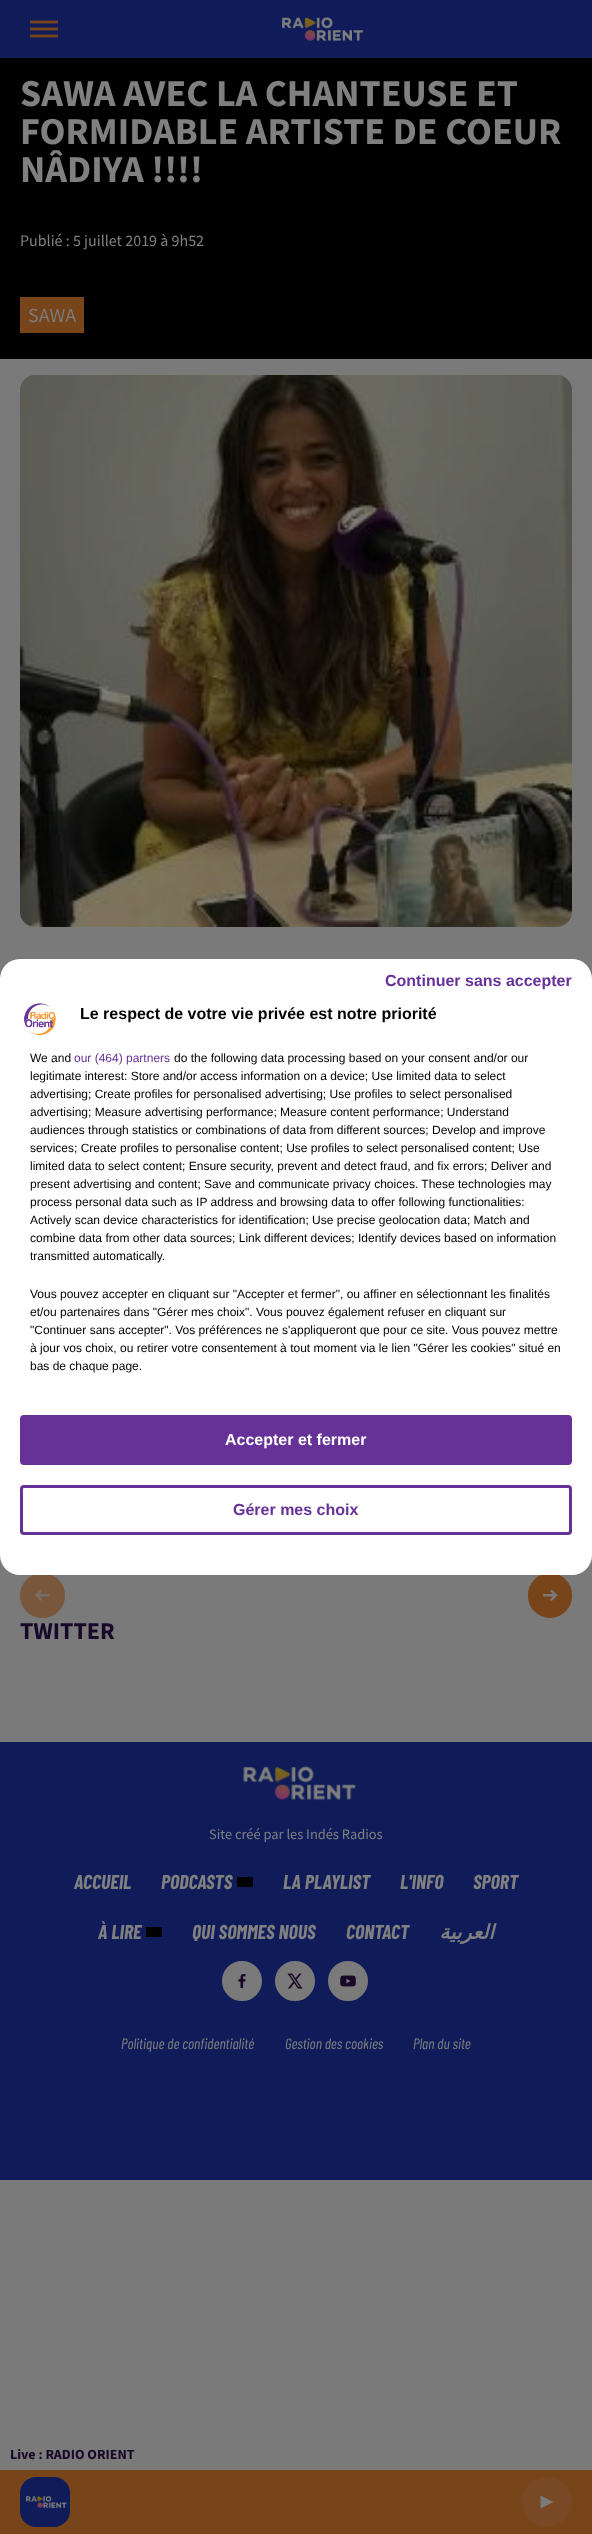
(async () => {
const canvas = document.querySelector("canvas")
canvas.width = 592
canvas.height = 2534
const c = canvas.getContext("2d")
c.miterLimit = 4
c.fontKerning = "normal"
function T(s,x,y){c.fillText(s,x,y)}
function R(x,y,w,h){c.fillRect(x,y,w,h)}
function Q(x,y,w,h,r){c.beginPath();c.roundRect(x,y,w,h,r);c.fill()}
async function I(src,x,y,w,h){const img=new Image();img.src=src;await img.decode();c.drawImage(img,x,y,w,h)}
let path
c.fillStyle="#7b7a7a"
R(0,0,592,2534)
c.fillStyle="#000"
R(0,58,592,301)
c.font="bold 38px Source Sans Pro"
c.fillStyle="#808080"
T("SAWA AVEC LA CHANTEUSE ET",20,106)
T("FORMIDABLE ARTISTE DE COEUR",20,144)
T("NÂDIYA !!!!",20,182)
c.font="16px Source Sans Pro"
T("Publié : 5 juillet 2019 à 9h52",20,246)
c.fillStyle="#78441a"
R(20,297,64,36)
c.font="20px Source Sans Pro"
c.fillStyle="#7b7a7a"
T("SAWA",28,322)
await I("1.png",20,375,552,552)
c.fillStyle="#79573c"
c.beginPath()
c.arc(42.5,1595.5,21.5,0,7)
c.fill()
c.strokeStyle="#79573c"
c.lineWidth=2
c.stroke()
await I("2.png",35,1589,15,12)
c.fillStyle="#78441a"
c.beginPath()
c.roundRect(529,1574,42,43,21)
c.fill()
c.strokeStyle="#78441a"
c.stroke()
await I("3.png",542,1589,16,12)
c.font="bold 24px Source Sans Pro"
c.fillStyle="#170829"
T("TWITTER",20,1639)
c.fillStyle="#101c5a"
R(0,1742,592,438)
await I("4.png",243,1766,113,35)
c.font="14.4px Source Sans Pro"
c.fillStyle="#808080"
T("Site créé par les Indés Radios",209,1839)
c.font="italic bold 20px Barlow Condensed"
T("ACCUEIL",74,1889)
T("PODCASTS",161,1889)
c.fillStyle="#000"
R(237,1877,16,10)
c.fillStyle="#808080"
T("LA PLAYLIST",283,1889)
T("L'INFO",400,1889)
T("SPORT",473,1889)
T("À LIRE",98,1939)
c.fillStyle="#000"
R(146,1927,16,10)
c.fillStyle="#808080"
T("QUI SOMMES NOUS",192,1939)
T("CONTACT",346,1939)
c.direction="rtl"
c.font="italic bold 20px DejaVu Sans"
T("العربية",494,1939)
c.fillStyle="#7b7a7a"
c.beginPath()
c.arc(242,1981,19,0,7)
c.fill()
c.strokeStyle="#7b7a7a"
c.stroke()
await I("5.png",238,1974,8,14)
c.beginPath()
c.arc(295,1981,19,0,7)
c.fill()
c.stroke()
await I("6.png",287,1973,16,16)
c.beginPath()
c.arc(348,1981,19,0,7)
c.fill()
c.stroke()
await I("7.png",340,1975,16,12)
c.direction="ltr"
c.font="italic 15px Barlow Condensed"
c.fillStyle="#808080"
T("Politique de confidentialité",121,2049)
T("Gestion des cookies",285,2049)
T("Plan du site",413,2049)
c.fillStyle="#101c5a"
R(0,0,592,58)
await I("8.png",30,20,28,18)
await I("9.png",282,17,82,24)
c.font="bold 14px Source Sans Pro"
c.fillStyle="#170829"
T("Live : RADIO ORIENT",10,2459)
c.fillStyle="#78441a"
R(0,2470,592,64)
await I("10.png",20,2477,50,50)
c.fillStyle="#784924"
c.beginPath()
c.arc(547,2502,25,0,7)
c.fill()
c.fillStyle="#7b7a7a"
path = new Path2D("M553.5 2502l-13 6.5v-13z")
c.fill(path)
c.fillStyle="#fff"
Q(0,959,592,616,20)
c.save()
c.beginPath()
c.roundRect(0,959,592,616,20)
c.clip()
Q(375,959,207,44,4)
c.restore()
c.font="bold 16px Liberation Sans"
c.fillStyle="#663298"
T("Continuer sans accepter",385,986)
c.beginPath()
c.roundRect(21.5,1416.5,549,47,2.5)
c.fill()
c.strokeStyle="#663298"
c.lineWidth=3
c.stroke()
c.fillStyle="#fff"
T("Accepter et fermer",225,1445)
c.beginPath()
c.roundRect(21.5,1486.5,549,47,2.5)
c.stroke()
c.fillStyle="#663298"
T("Gérer mes choix",233,1515)
await I("11.png",24,1003,32,33)
c.fillStyle="#000"
T("Le respect de votre vie privée est notre priorité",80,1019)
c.font="12px Liberation Sans"
T("We and",30,1062)
c.fillStyle="#663298"
T("our (464) partners",74,1062)
c.fillStyle="#000"
T("do the following data processing based on your consent and/or our",174,1062)
T("legitimate interest: Store and/or access information on a device; Use limited data to select",30,1080)
T("advertising; Create profiles for personalised advertising; Use profiles to select personalised",30,1098)
T("advertising; Measure advertising performance; Measure content performance; Understand",30,1116)
T("audiences through statistics or combinations of data from different sources; Develop and improve",30,1134)
T("services; Create profiles to personalise content; Use profiles to select personalised content; Use",30,1152)
T("limited data to select content; Ensure security, prevent and detect fraud, and fix errors; Deliver and",30,1170)
T("present advertising and content; Save and communicate privacy choices. These technologies may",30,1188)
T("process personal data such as IP address and browsing data to offer following functionalities:",30,1206)
T("Actively scan device characteristics for identification; Use precise geolocation data; Match and",30,1224)
T("combine data from other data sources; Link different devices; Identify devices based on information",30,1242)
T("transmitted automatically.",30,1260)
T("Vous pouvez accepter en cliquant sur \"Accepter et fermer\", ou affiner en sélectionnant les finalités",30,1298)
T("et/ou partenaires dans \"Gérer mes choix\". Vous pouvez également refuser en cliquant sur",30,1316)
T("\"Continuer sans accepter\". Vos préférences ne s'appliqueront que pour ce site. Vous pouvez mettre",30,1334)
T("à jour vos choix, ou retirer votre consentement à tout moment via le lien \"Gérer les cookies\" situé en",30,1352)
T("bas de chaque page.",30,1370)
})()
